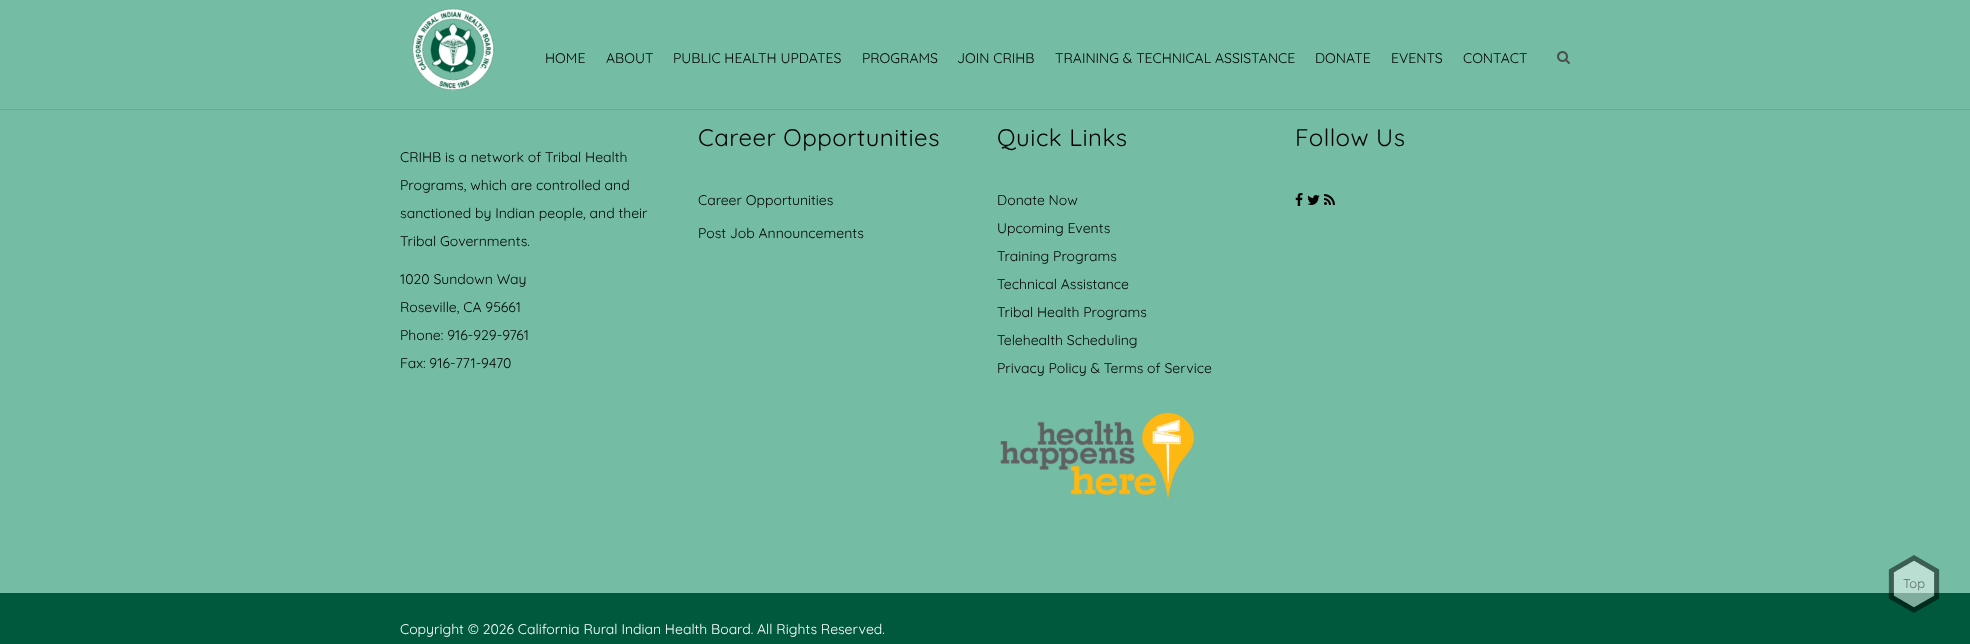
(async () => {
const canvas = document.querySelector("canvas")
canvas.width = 1970
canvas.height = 644
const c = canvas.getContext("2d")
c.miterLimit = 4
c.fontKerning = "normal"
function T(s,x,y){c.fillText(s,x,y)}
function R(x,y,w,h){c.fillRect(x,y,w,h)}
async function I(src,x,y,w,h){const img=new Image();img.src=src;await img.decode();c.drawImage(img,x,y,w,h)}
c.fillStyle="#00583d"
R(0,0,1970,644)
c.fillStyle="#74bca4"
R(0,0,1970,109)
c.fillStyle="#68a994"
R(0,109,1970,1)
await I("1.png",412,8,83,83)
c.font="14px Quicksand"
c.fillStyle="#000"
T("HOME",545,63)
T("ABOUT",606,63)
T("PUBLIC HEALTH UPDATES",673,63)
T("PROGRAMS",862,63)
T("JOIN CRIHB",957,63)
T("TRAINING & TECHNICAL ASSISTANCE",1055,63)
T("DONATE",1315,63)
T("EVENTS",1391,63)
T("CONTACT",1463,63)
await I("2.png",1557,51,13,13)
c.fillStyle="#74bca4"
R(0,110,1970,483)
c.letterSpacing="0.5px"
c.font="24px Quicksand"
c.fillStyle="#000"
T("Career Opportunities",698,146)
c.letterSpacing="0px"
c.font="14px Quicksand"
T("Career Opportunities",698,205)
T("Post Job Announcements",698,238)
c.letterSpacing="0.5px"
c.font="24px Quicksand"
T("Quick Links",997,146)
c.letterSpacing="0px"
c.font="14px Quicksand"
T("Donate Now",997,205)
T("Upcoming Events",997,233)
T("Training Programs",997,261)
T("Technical Assistance",997,289)
T("Tribal Health Programs",997,317)
T("Telehealth Scheduling",997,345)
T("Privacy Policy & Terms of Service",997,373)
await I("3.png",1000,412,195,87)
c.letterSpacing="0.5px"
c.font="24px Quicksand"
T("Follow Us",1295,146)
await I("4.png",1295,193,8,13)
await I("5.png",1307,195,13,10)
await I("6.png",1324,194,11,11)
c.letterSpacing="0px"
c.font="14px Quicksand"
T("CRIHB is a network of Tribal Health",400,162)
T("Programs, which are controlled and",400,190)
T("sanctioned by Indian people, and their",400,218)
T("Tribal Governments.",400,246)
T("1020 Sundown Way",400,284)
T("Roseville, CA 95661",400,312)
T("Phone: 916-929-9761",400,340)
T("Fax: 916-771-9470",400,368)
c.fillStyle="#fff"
T("Copyright © 2026 California Rural Indian Health Board. All Rights Reserved.",400,634)
await I("7.png",1888,555,52,58)
c.font="13px Quicksand"
c.fillStyle="#5d6f69"
T("Top",1903,588)
})()
